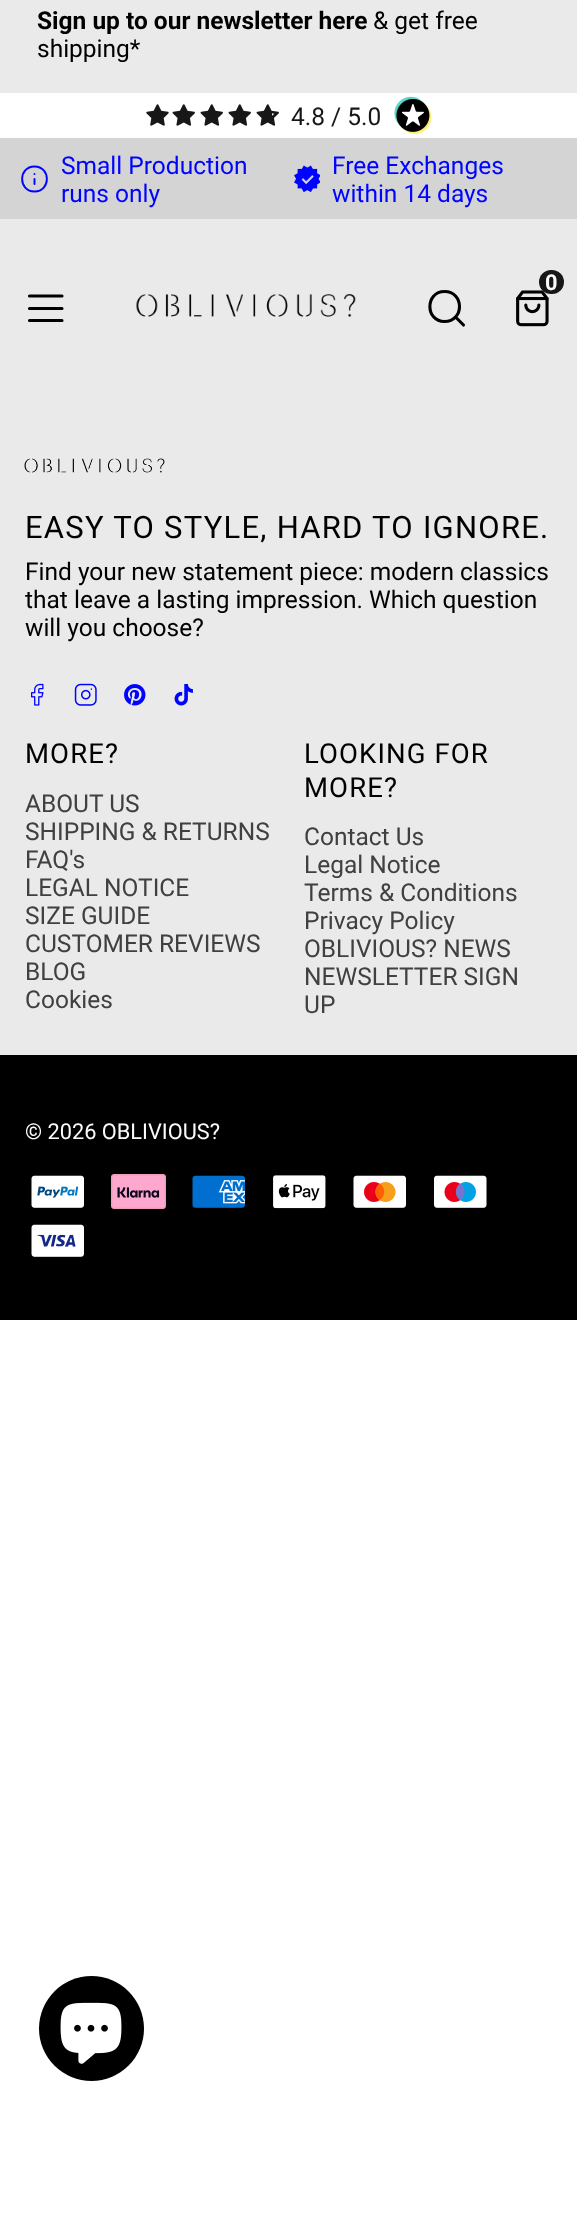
(async () => {
const canvas = document.querySelector("canvas")
canvas.width = 577
canvas.height = 2228
const c = canvas.getContext("2d")
c.miterLimit = 4
c.fontKerning = "normal"
function T(s,x,y){c.fillText(s,x,y)}
function R(x,y,w,h){c.fillRect(x,y,w,h)}
function Q(x,y,w,h,r){c.beginPath();c.roundRect(x,y,w,h,r);c.fill()}
async function I(src,x,y,w,h){const img=new Image();img.src=src;await img.decode();c.drawImage(img,x,y,w,h)}
let path
c.fillStyle="#fff"
R(0,0,577,2228)
c.fillStyle="#eaeaea"
R(0,0,577,93)
c.font="bold 24.5px Roboto"
c.fillStyle="#000"
T("Sign up to our newsletter here",37,29)
c.font="24.5px Roboto"
T("& get free",373,29)
T("shipping*",37,57)
await I("1.png",146,104,23,22)
await I("2.png",172,104,23,22)
await I("2.png",200,104,23,22)
await I("2.png",228,104,23,22)
await I("3.png",256,104,23,22)
c.fillStyle="#171717"
T("4.8 / 5.0",291,125)
await I("4.png",394,96,38,38)
c.fillStyle="#d4d4d4"
R(0,138,577,81)
path = new Path2D("M34.5 191.5c16.5 0 16.5-25 0-25c-16.5 0-16.5 25 0 25zm0-7.5v-5m0-5h0")
c.strokeStyle="#0004ff"
c.lineWidth=1.9
c.lineCap="round"
c.lineJoin="round"
c.stroke(path)
c.fillStyle="#0004ff"
T("Small Production",61,174)
T("runs only",61,202)
await I("5.png",294,165,26,28)
T("Free Exchanges",332,174)
T("within 14 days",332,202)
c.fillStyle="#eaeaea"
R(0,219,577,836)
await I("6.png",516,290,33,37)
c.fillStyle="#171717"
Q(539,270,25,24,12)
c.font="bold 21.75px Roboto"
c.fillStyle="#fafafa"
T("0",545,290)
path = new Path2D("M444.5 321.5c20 0 20-30 0-30c-19.5 0-19.5 30 0 30zm19 3.5l-8-8")
c.strokeStyle="#000"
c.lineWidth=3.1
c.stroke(path)
path = new Path2D("M29.5 308.5h32.5m-32.5-12.5h32.5m-32.5 24.5h32.5")
c.stroke(path)
await I("7.png",136,294,220,23)
await I("8.png",24,458,141,15)
c.letterSpacing="1.25px"
c.font="31px Roboto"
c.fillStyle="#000"
T("EASY TO STYLE, HARD TO IGNORE.",25,538)
c.letterSpacing="0px"
c.font="24.5px Roboto"
T("Find your new statement piece: modern classics",25,580)
T("that leave a lasting impression. Which question",25,608)
T("will you choose?",25,636)
await I("9.png",31,683,13,23)
await I("10.png",74,683,23,23)
await I("11.png",124,684,22,22)
await I("12.png",174,684,19,22)
c.letterSpacing="1.1px"
c.font="27.5px Roboto"
T("MORE?",25,763)
c.letterSpacing="0px"
c.font="24.5px Roboto"
c.fillStyle="#404040"
T("ABOUT US",25,812)
T("SHIPPING & RETURNS",25,840)
T("FAQ's",25,868)
T("LEGAL NOTICE",25,896)
T("SIZE GUIDE",25,924)
T("CUSTOMER REVIEWS",25,952)
T("BLOG",25,980)
T("Cookies",25,1008)
c.letterSpacing="1.1px"
c.font="27.5px Roboto"
c.fillStyle="#000"
T("LOOKING FOR",304,763)
T("MORE?",304,797)
c.letterSpacing="0px"
c.font="24.5px Roboto"
c.fillStyle="#404040"
T("Contact Us",304,845)
T("Legal Notice",304,873)
T("Terms & Conditions",304,901)
T("Privacy Policy",304,929)
T("OBLIVIOUS? NEWS",304,957)
T("NEWSLETTER SIGN",304,985)
T("UP",304,1013)
c.fillStyle="#000"
R(0,1055,577,265)
c.font="21.75px Roboto"
c.fillStyle="#fafafa"
T("© 2026 OBLIVIOUS?",25,1139)
await I("13.png",31,1175,53,33)
await I("14.png",111,1174,55,35)
await I("15.png",192,1175,53,33)
await I("16.png",273,1175,53,34)
await I("17.png",353,1175,53,33)
await I("18.png",434,1175,53,33)
await I("19.png",31,1224,53,33)
c.fillStyle="#000"
c.beginPath()
c.arc(91.5,2028.5,52.5,0,7)
c.fill()
await I("20.png",60,2002,62,62)
})()
